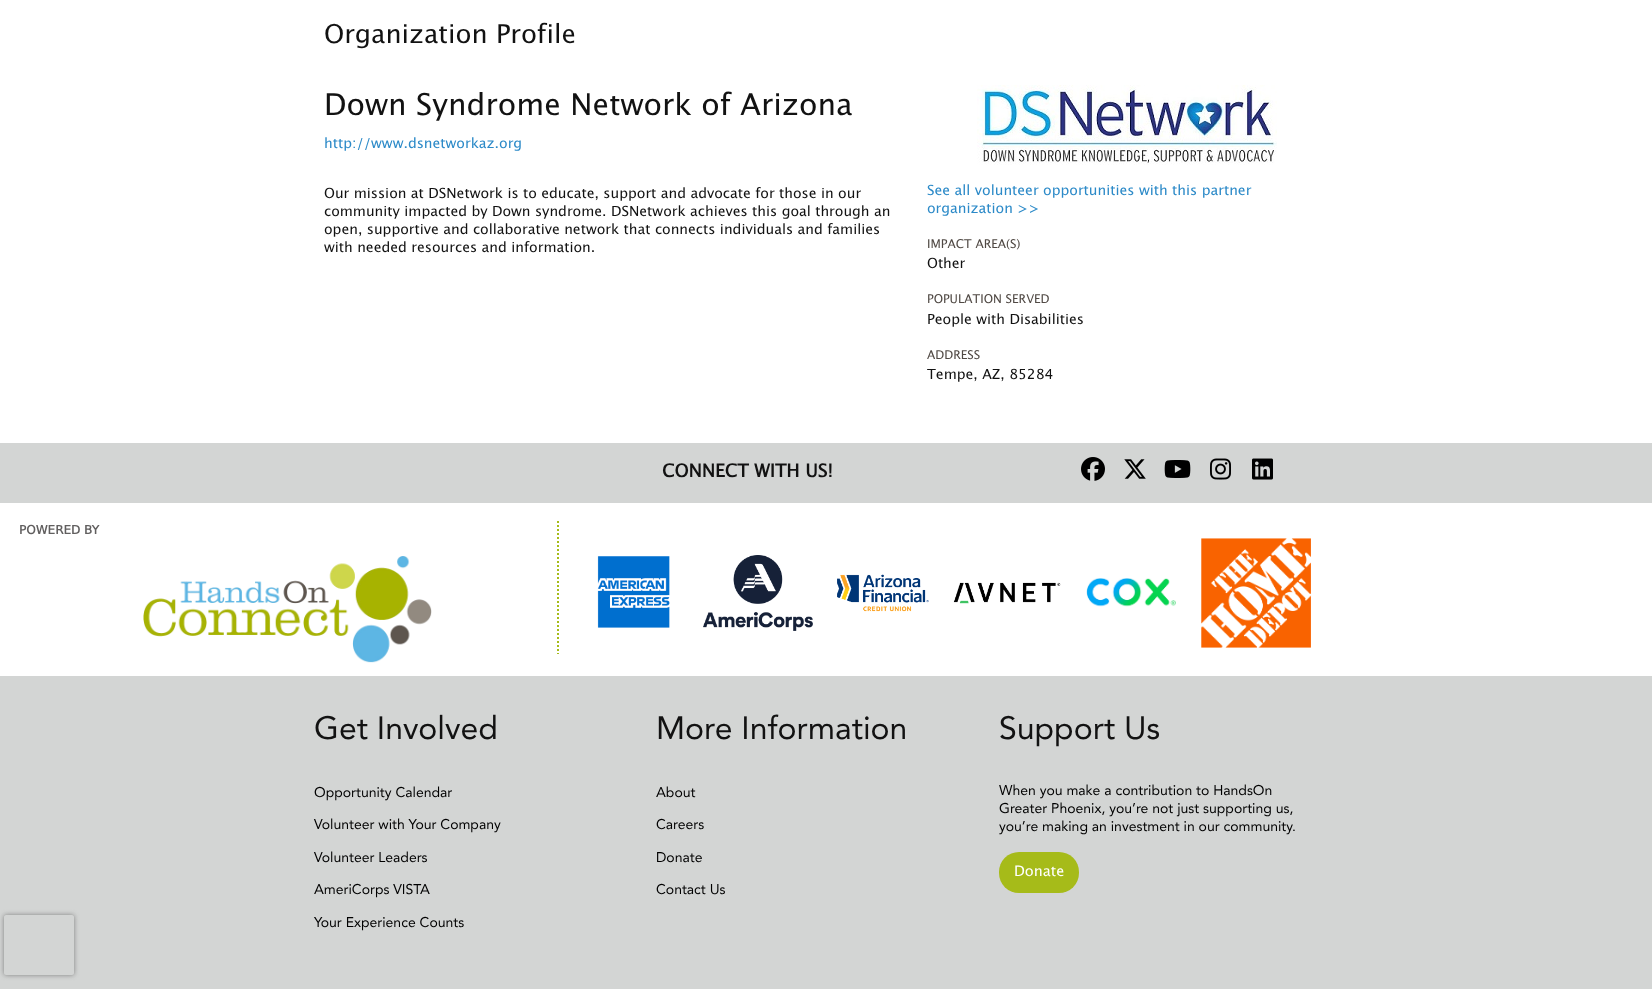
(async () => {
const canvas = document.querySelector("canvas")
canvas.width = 1652
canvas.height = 989
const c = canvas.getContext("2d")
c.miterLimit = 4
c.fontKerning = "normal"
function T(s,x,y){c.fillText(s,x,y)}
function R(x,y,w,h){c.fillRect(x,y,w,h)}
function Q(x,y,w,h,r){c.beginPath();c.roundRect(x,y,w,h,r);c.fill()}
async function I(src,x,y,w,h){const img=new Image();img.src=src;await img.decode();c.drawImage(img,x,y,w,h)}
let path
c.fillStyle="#fff"
R(0,0,1652,989)
c.font="26px Lucida Grande"
c.fillStyle="#121212"
T("Organization Profile",324,43)
c.font="30px Lucida Grande"
T("Down Syndrome Network of Arizona",324,115)
c.font="14px Lucida Grande"
c.fillStyle="#2c8ac8"
T("http://www.dsnetworkaz.org",324,148)
c.fillStyle="#121212"
T("Our mission at DSNetwork is to educate, support and advocate for those in our",324,198)
T("community impacted by Down syndrome. DSNetwork achieves this goal through an",324,216)
T("open, supportive and collaborative network that connects individuals and families",324,234)
T("with needed resources and information.",324,252)
await I("1.png",977,85,300,80)
c.fillStyle="#2c8ac8"
T("See all volunteer opportunities with this partner",927,195)
T("organization >>",927,213)
c.font="12px Lucida Grande"
c.fillStyle="#504944"
T("IMPACT AREA(S)",927,248)
c.font="14px Lucida Grande"
c.fillStyle="#121212"
T("Other",927,268)
c.font="12px Lucida Grande"
c.fillStyle="#504944"
T("POPULATION SERVED",927,303)
c.font="14px Lucida Grande"
c.fillStyle="#121212"
T("People with Disabilities",927,324)
c.font="12px Lucida Grande"
c.fillStyle="#504944"
T("ADDRESS",927,359)
c.font="14px Lucida Grande"
c.fillStyle="#121212"
T("Tempe, AZ, 85284",927,379)
c.fillStyle="#d3d5d4"
R(0,443,1652,60)
c.font="bold 18px Lucida Grande"
c.fillStyle="#121212"
T("CONNECT WITH US!",662,477)
await I("2.png",1081,457,24,24)
await I("3.png",1124,459,22,20)
await I("4.png",1164,460,27,18)
await I("5.png",1210,458,21,22)
await I("6.png",1252,458,21,22)
c.font="bold 12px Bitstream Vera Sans"
c.fillStyle="#615f5f"
T("POWERED BY",19,534)
await I("7.png",143,556,289,107)
path = new Path2D("M558 521v133")
c.strokeStyle="#a6bb19"
c.lineWidth=2
c.setLineDash([2,2])
c.stroke(path)
await I("8.png",597,556,73,72)
await I("9.png",703,555,110,76)
await I("10.png",837,574,92,38)
await I("11.png",953,582,108,22)
await I("12.png",1086,578,90,29)
await I("13.png",1201,538,110,110)
c.fillStyle="#d3d5d4"
R(0,676,1652,313)
c.font="32px Avenir"
c.fillStyle="#121212"
T("Get Involved",314,739)
c.font="14px Avenir"
c.fillStyle="#000"
T("Opportunity Calendar",314,797)
T("Volunteer with Your Company",314,829)
T("Volunteer Leaders",314,862)
T("AmeriCorps VISTA",314,894)
T("Your Experience Counts",314,927)
c.font="32px Avenir"
c.fillStyle="#121212"
T("More Information",656,739)
c.font="14px Avenir"
c.fillStyle="#000"
T("About",656,797)
T("Careers",656,829)
T("Donate",656,862)
T("Contact Us",656,894)
c.font="32px Avenir"
c.fillStyle="#121212"
T("Support Us",999,739)
c.font="14px Avenir"
c.fillStyle="#000"
T("When you make a contribution to HandsOn",999,795)
T("Greater Phoenix, you’re not just supporting us,",999,813)
T("you’re making an investment in our community.",999,831)
c.fillStyle="#a6bb19"
Q(999,852,80,41,20)
c.font="14.5px Lucida Grande"
c.fillStyle="#fff"
T("Donate",1014,876)
c.save()
path = new Path2D("M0 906h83v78h-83zm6 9h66c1 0 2 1 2 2v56c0 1-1 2-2 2h-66c-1 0-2-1-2-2v-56c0-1 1-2 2-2z")
c.clip(path,"evenodd")
c.fillStyle="#808080"
c.filter="blur(2.5px)"
c.beginPath()
c.roundRect(4,915,70,60,2)
c.fill()
c.filter="none"
c.restore()
})()
